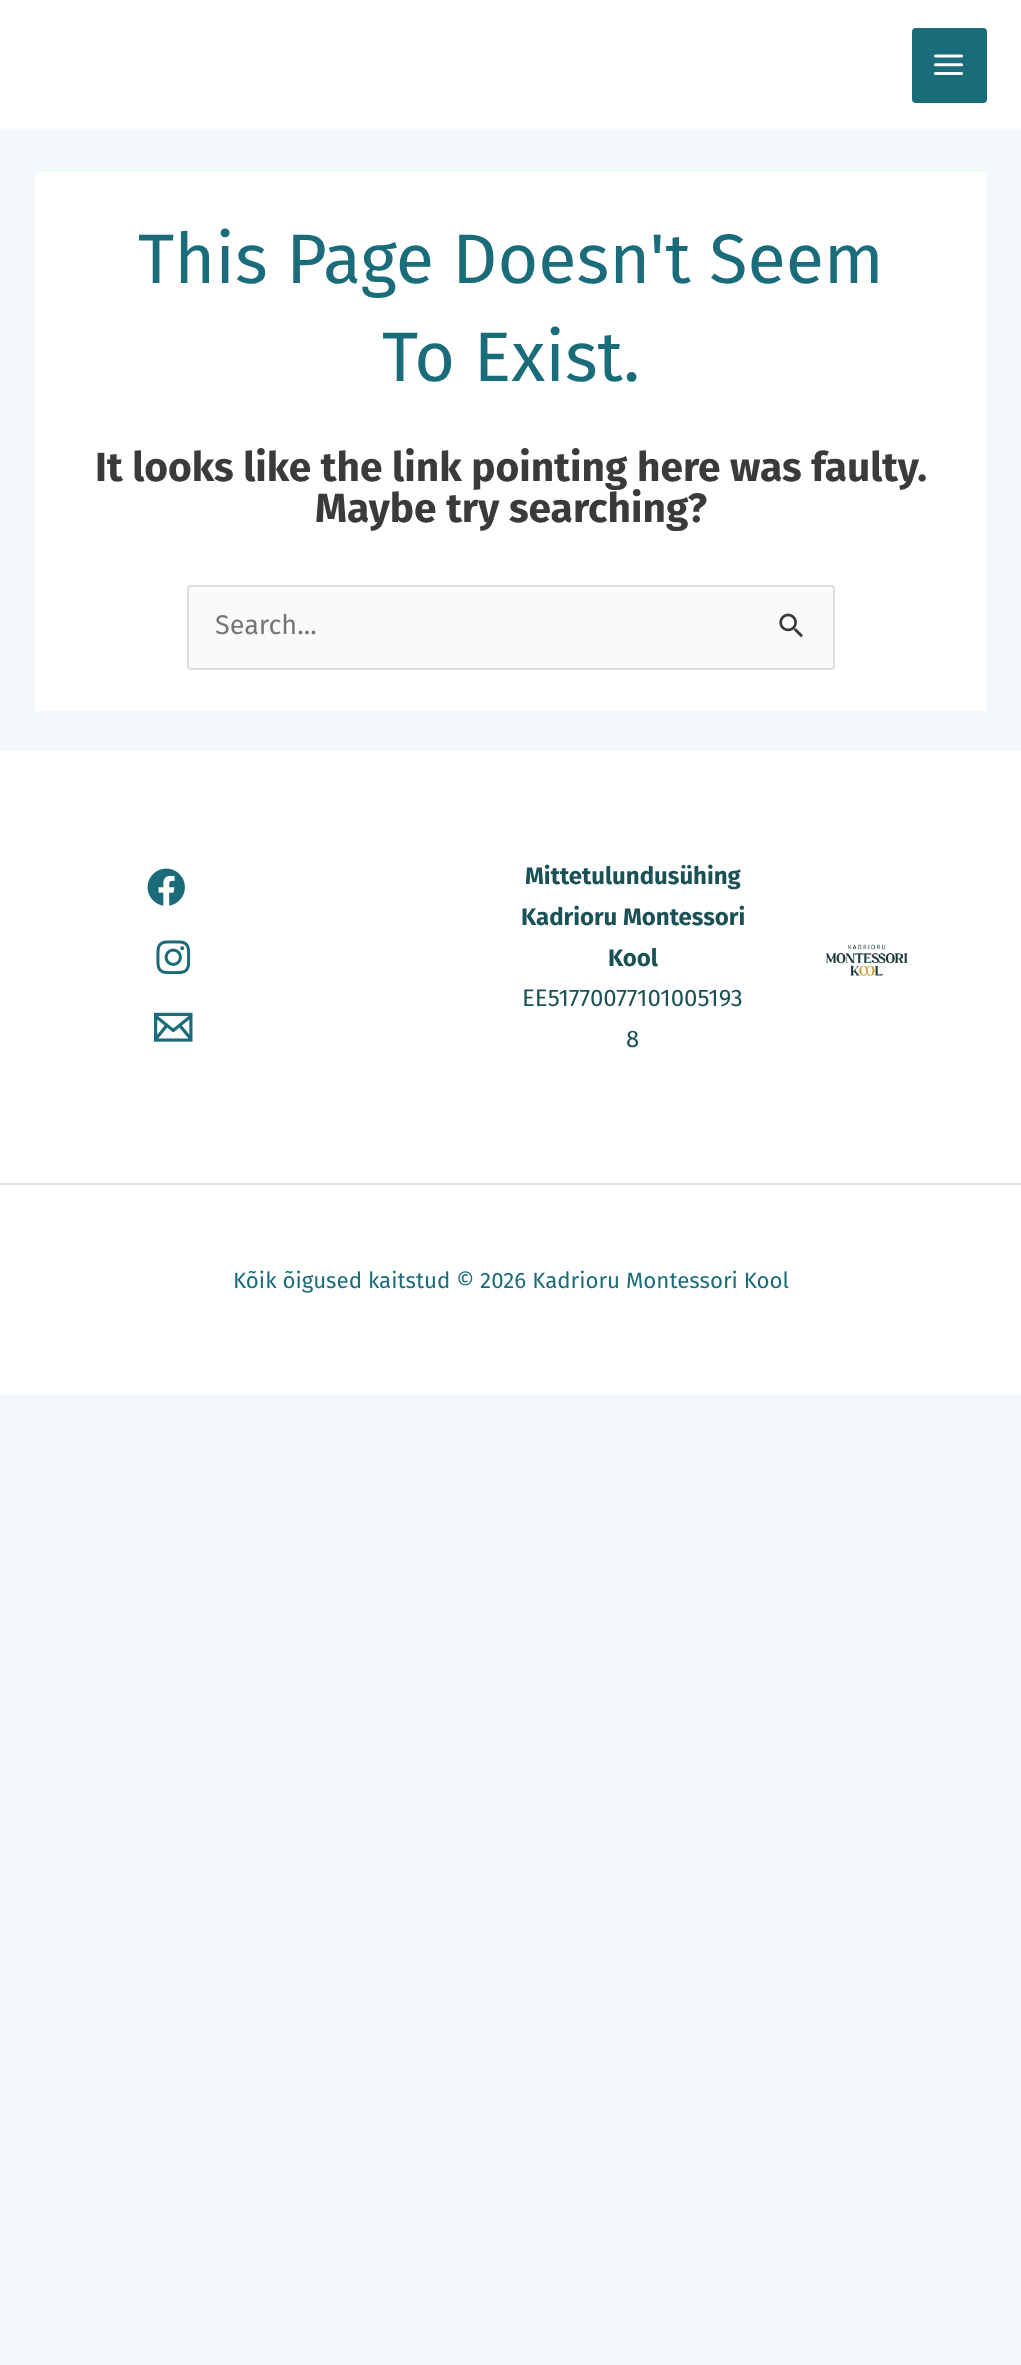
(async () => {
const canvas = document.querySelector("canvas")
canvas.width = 1021
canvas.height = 2365
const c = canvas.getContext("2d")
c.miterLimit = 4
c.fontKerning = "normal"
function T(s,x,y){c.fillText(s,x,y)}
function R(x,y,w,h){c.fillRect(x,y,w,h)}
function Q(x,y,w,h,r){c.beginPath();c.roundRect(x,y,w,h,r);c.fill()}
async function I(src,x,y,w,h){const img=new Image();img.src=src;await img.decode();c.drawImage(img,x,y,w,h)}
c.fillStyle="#f3f9fb"
R(0,0,1021,2365)
c.fillStyle="#fff"
R(0,0,1021,130)
c.fillStyle="#1a6c7a"
Q(912,28,75,75,4)
await I("1.png",933,54,31,21)
c.fillStyle="#fff"
R(35,172,952,539)
c.font="70px Fira Sans"
c.fillStyle="#1a6c7a"
T("This Page Doesn't Seem",138,283)
T("To Exist.",382,381)
c.font="bold 40.7px Fira Sans"
c.fillStyle="#3a3a3a"
T("It looks like the link pointing here was faulty.",95,481)
T("Maybe try searching?",315,522)
c.fillStyle="#fafafa"
c.beginPath()
c.roundRect(188,586,646,83,3)
c.fill()
c.strokeStyle="#ddd"
c.lineWidth=2
c.stroke()
c.font="27px Fira Sans"
c.fillStyle="#757575"
T("Search...",215,634)
await I("2.png",779,613,24,25)
c.fillStyle="#fff"
R(0,751,1021,644)
await I("3.png",147,868,38,38)
await I("4.png",156,940,35,35)
await I("5.png",154,1012,39,30)
c.font="bold 24px Fira Sans"
c.fillStyle="#1a5156"
T("Mittetulundusühing",525,884)
T("Kadrioru Montessori",521,925)
T("Kool",608,966)
c.font="24px Fira Sans"
T("EE51770077101005193",522,1006)
T("8",626,1047)
await I("6.png",826,944,82,33)
c.fillStyle="#dbe8eb"
R(0,1183,1021,2)
c.font="22.3px Fira Sans"
c.fillStyle="#1a6c7a"
T("Kõik õigused kaitstud © 2026 Kadrioru Montessori Kool",233,1288)
})()
